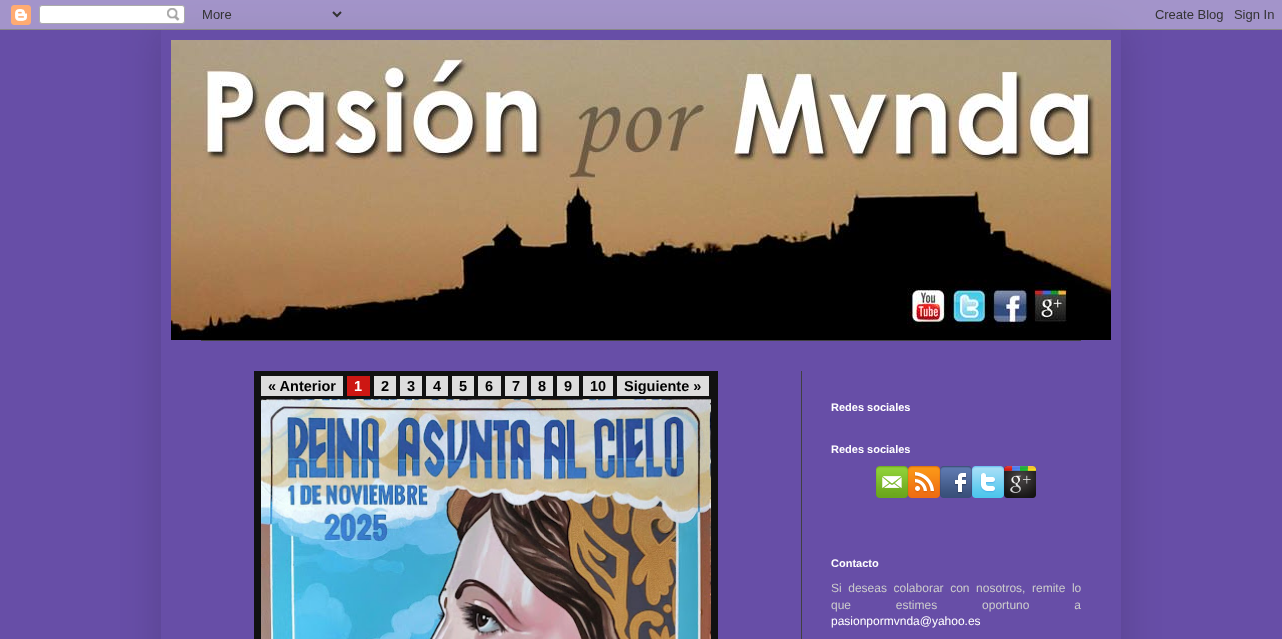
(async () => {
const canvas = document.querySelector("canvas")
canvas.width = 1282
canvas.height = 639
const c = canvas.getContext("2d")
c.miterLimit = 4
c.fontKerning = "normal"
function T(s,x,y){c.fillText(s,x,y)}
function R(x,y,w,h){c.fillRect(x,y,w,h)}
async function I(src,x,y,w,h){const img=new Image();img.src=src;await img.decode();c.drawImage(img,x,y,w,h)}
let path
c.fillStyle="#674ea7"
R(0,0,1282,639)
c.save()
path = new Path2D("M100 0h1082v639h-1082zm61 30h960v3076h-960z")
c.clip(path,"evenodd")
c.fillStyle="#00000026"
c.filter="blur(20px)"
c.beginPath()
c.rect(161,30,960,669)
c.fill()
c.filter="none"
c.restore()
await I("1.png",0,0,1282,30)
await I("2.png",171,40,940,300)
c.fillStyle="#404040"
R(201,340,880,1)
R(801,371,1,268)
c.fillStyle="#111"
R(254,371,464,268)
c.fillStyle="#ddd"
R(261,376,82,20)
c.font="bold 14.5px Liberation Sans"
c.fillStyle="#000"
T("« Anterior",268,391)
c.fillStyle="#cd1713"
R(347,376,23,20)
c.fillStyle="#fff"
T("1",354,391)
c.fillStyle="#ddd"
R(374,376,22,20)
c.fillStyle="#000"
T("2",381,391)
c.fillStyle="#ddd"
R(400,376,22,20)
c.fillStyle="#000"
T("3",407,391)
c.fillStyle="#ddd"
R(426,376,22,20)
c.fillStyle="#000"
T("4",433,391)
c.fillStyle="#ddd"
R(452,376,22,20)
c.fillStyle="#000"
T("5",459,391)
c.fillStyle="#ddd"
R(478,376,23,20)
c.fillStyle="#000"
T("6",485,391)
c.fillStyle="#ddd"
R(505,376,22,20)
c.fillStyle="#000"
T("7",512,391)
c.fillStyle="#ddd"
R(531,376,22,20)
c.fillStyle="#000"
T("8",538,391)
c.fillStyle="#ddd"
R(557,376,22,20)
c.fillStyle="#000"
T("9",564,391)
c.fillStyle="#ddd"
R(583,376,30,20)
c.fillStyle="#000"
T("10",590,391)
c.fillStyle="#ddd"
R(617,376,92,20)
c.fillStyle="#000"
T("Siguiente »",624,391)
await I("3.png",261,399,450,240)
c.font="bold 11px Liberation Sans"
c.fillStyle="#fff"
T("Redes sociales",831,411)
T("Redes sociales",831,453)
await I("4.png",876,466,32,32)
await I("5.png",908,466,32,32)
await I("6.png",940,466,32,32)
await I("7.png",972,466,32,32)
await I("8.png",1004,466,32,32)
T("Contacto",831,567)
c.wordSpacing="3.25px"
c.font="12px Liberation Sans"
c.fillStyle="#ccc"
T("Si deseas colaborar con nosotros, remite lo",831,592)
c.wordSpacing="41.5px"
T("que estimes oportuno a",831,609)
c.wordSpacing="0px"
c.fillStyle="#fff"
T("pasionpormvnda@yahoo.es",831,625)
})()
